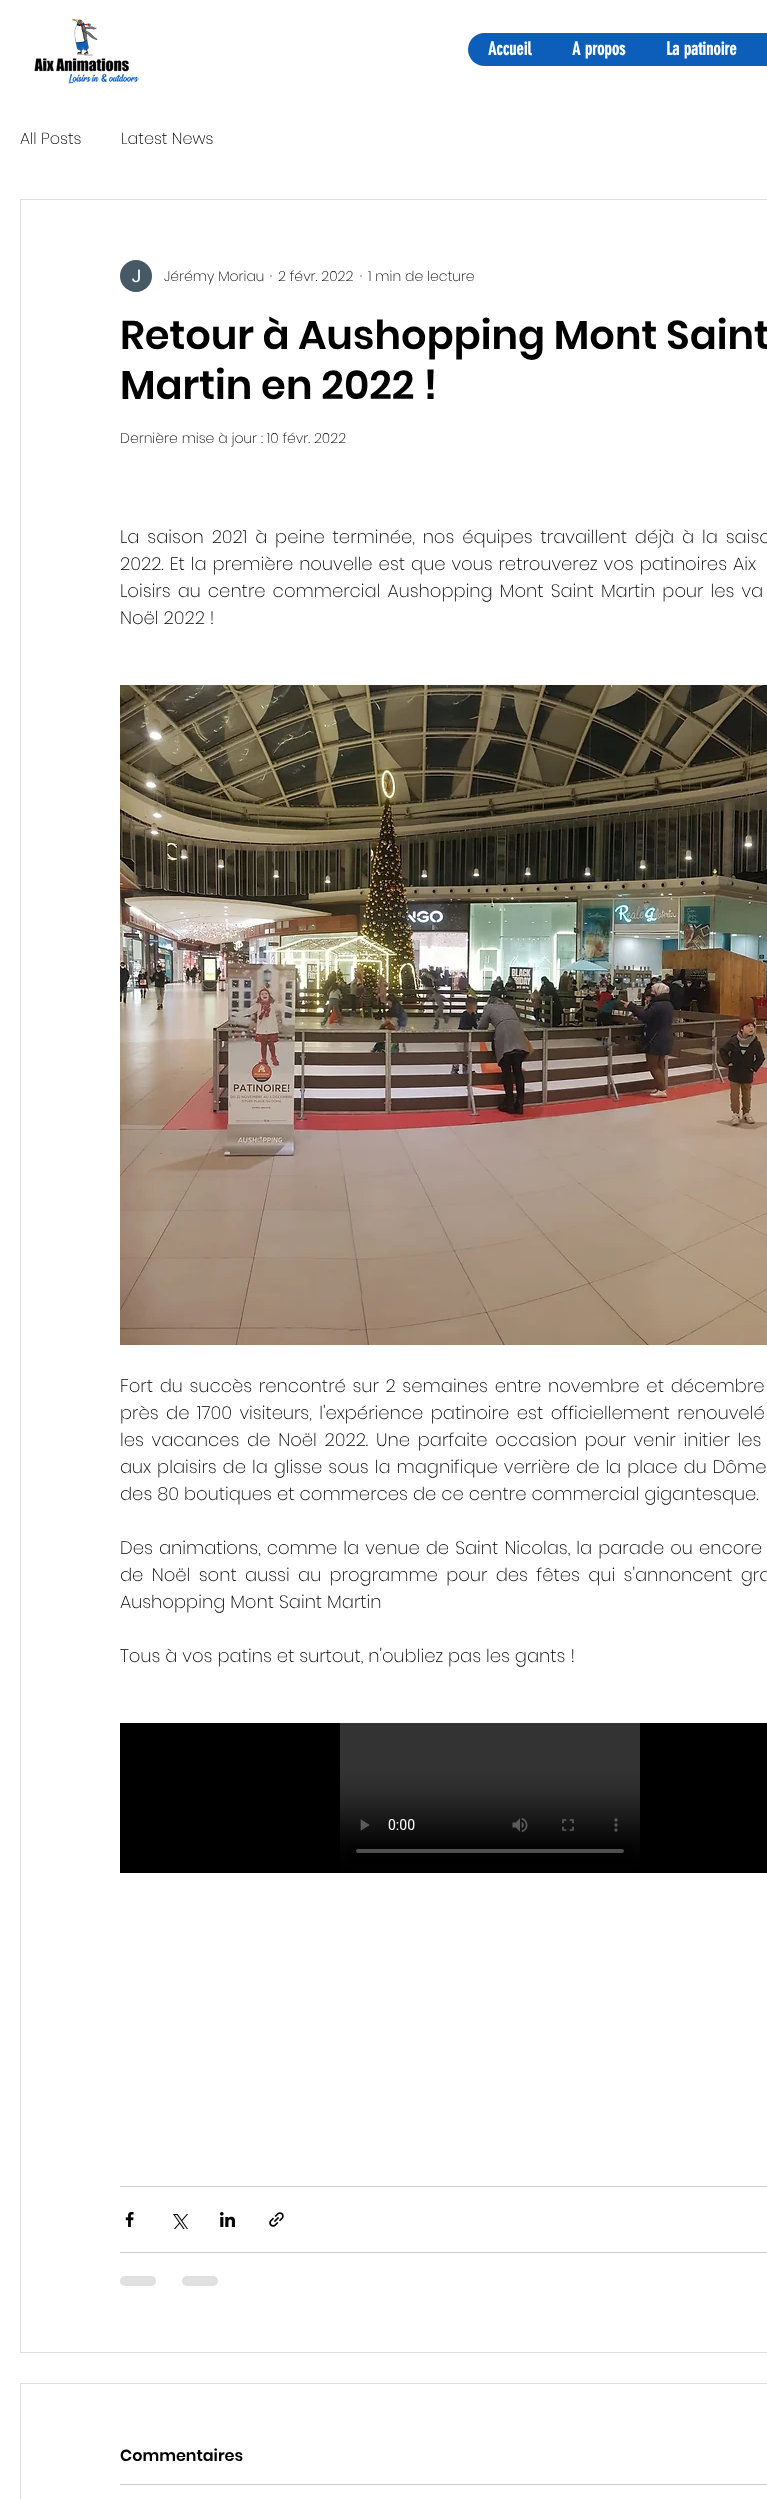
(async () => {
const canvas = document.querySelector("canvas")
canvas.width = 767
canvas.height = 2499
const c = canvas.getContext("2d")
c.miterLimit = 4
c.fontKerning = "normal"
function T(s,x,y){c.fillText(s,x,y)}
function R(x,y,w,h){c.fillRect(x,y,w,h)}
function Q(x,y,w,h,r){c.beginPath();c.roundRect(x,y,w,h,r);c.fill()}
async function I(src,x,y,w,h){const img=new Image();img.src=src;await img.decode();c.drawImage(img,x,y,w,h)}
c.fillStyle="#fff"
R(0,0,767,2499)
await I("1.png",34,19,105,65)
c.fillStyle="#0d5eba"
Q(468,33,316,33,16.5)
c.font="bold 18px 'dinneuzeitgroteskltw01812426'"
c.fillStyle="#fff"
T("Accueil",488,55)
T("A propos",572,55)
T("La patinoire",666,55)
c.font="200 16px Poppins"
c.fillStyle="#000"
T("All Posts",20,144)
T("Latest News",121,144)
c.strokeStyle="#dfdfdf"
c.strokeRect(20.5,199.5,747,2153)
await I("2.png",120,260,32,32)
c.font="200 14px Poppins"
T("Jérémy Moriau",164,281)
T("·",270,281)
T("2 févr. 2022",278,281)
T("·",360,281)
T("1 min de lecture",368,281)
c.font="600 40px Poppins"
T("Retour à Aushopping Mont Saint",120,349)
T("Martin en 2022 !",120,399)
c.font="200 14px Poppins"
T("Dernière mise à jour : 10 févr. 2022",120,443)
c.wordSpacing="2.9px"
c.font="200 18px Poppins"
T("La saison 2021 à peine terminée, nos équipes travaillent déjà à la saiso",120,543)
c.wordSpacing="1px"
T("2022. Et la première nouvelle est que vous retrouverez vos patinoires Aix",120,570)
c.wordSpacing="2.1px"
T("Loisirs au centre commercial Aushopping Mont Saint Martin pour les va",120,597)
c.wordSpacing="0px"
T("Noël 2022 !",120,624)
await I("3.png",120,685,647,660)
c.wordSpacing="1.75px"
T("Fort du succès rencontré sur 2 semaines entre novembre et décembre",120,1392)
c.wordSpacing="2.5px"
T("près de 1700 visiteurs, l'expérience patinoire est officiellement renouvelé",120,1419)
c.wordSpacing="2.75px"
T("les vacances de Noël 2022. Une parfaite occasion pour venir initier les",120,1446)
c.wordSpacing="1px"
T("aux plaisirs de la glisse sous la magnifique verrière de la place du Dôme",120,1473)
c.wordSpacing="0px"
T("des 80 boutiques et commerces de ce centre commercial gigantesque.",120,1500)
c.wordSpacing="1.1px"
T("Des animations, comme la venue de Saint Nicolas, la parade ou encore",120,1554)
c.wordSpacing="3.4px"
T("de Noël sont aussi au programme pour des fêtes qui s'annoncent gra",120,1581)
c.wordSpacing="0px"
T("Aushopping Mont Saint Martin",120,1608)
T("Tous à vos patins et surtout, n'oubliez pas les gants !",120,1662)
await I("4.png",120,1723,647,150)
c.fillStyle="#ccc"
R(120,2186,647,1)
await I("5.png",125,2212,9,15)
await I("6.png",173,2214,15,15)
await I("7.png",220,2212,15,15)
await I("8.png",269,2212,15,15)
R(120,2252,647,1)
c.fillStyle="#e0e0e0"
Q(120,2276,36,10,5)
Q(182,2276,36,10,5)
c.strokeRect(20.5,2383.5,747,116)
c.font="600 16px Poppins"
c.fillStyle="#000"
T("Commentaires",120,2461)
c.fillStyle="#ccc"
R(120,2484,647,1)
})()
